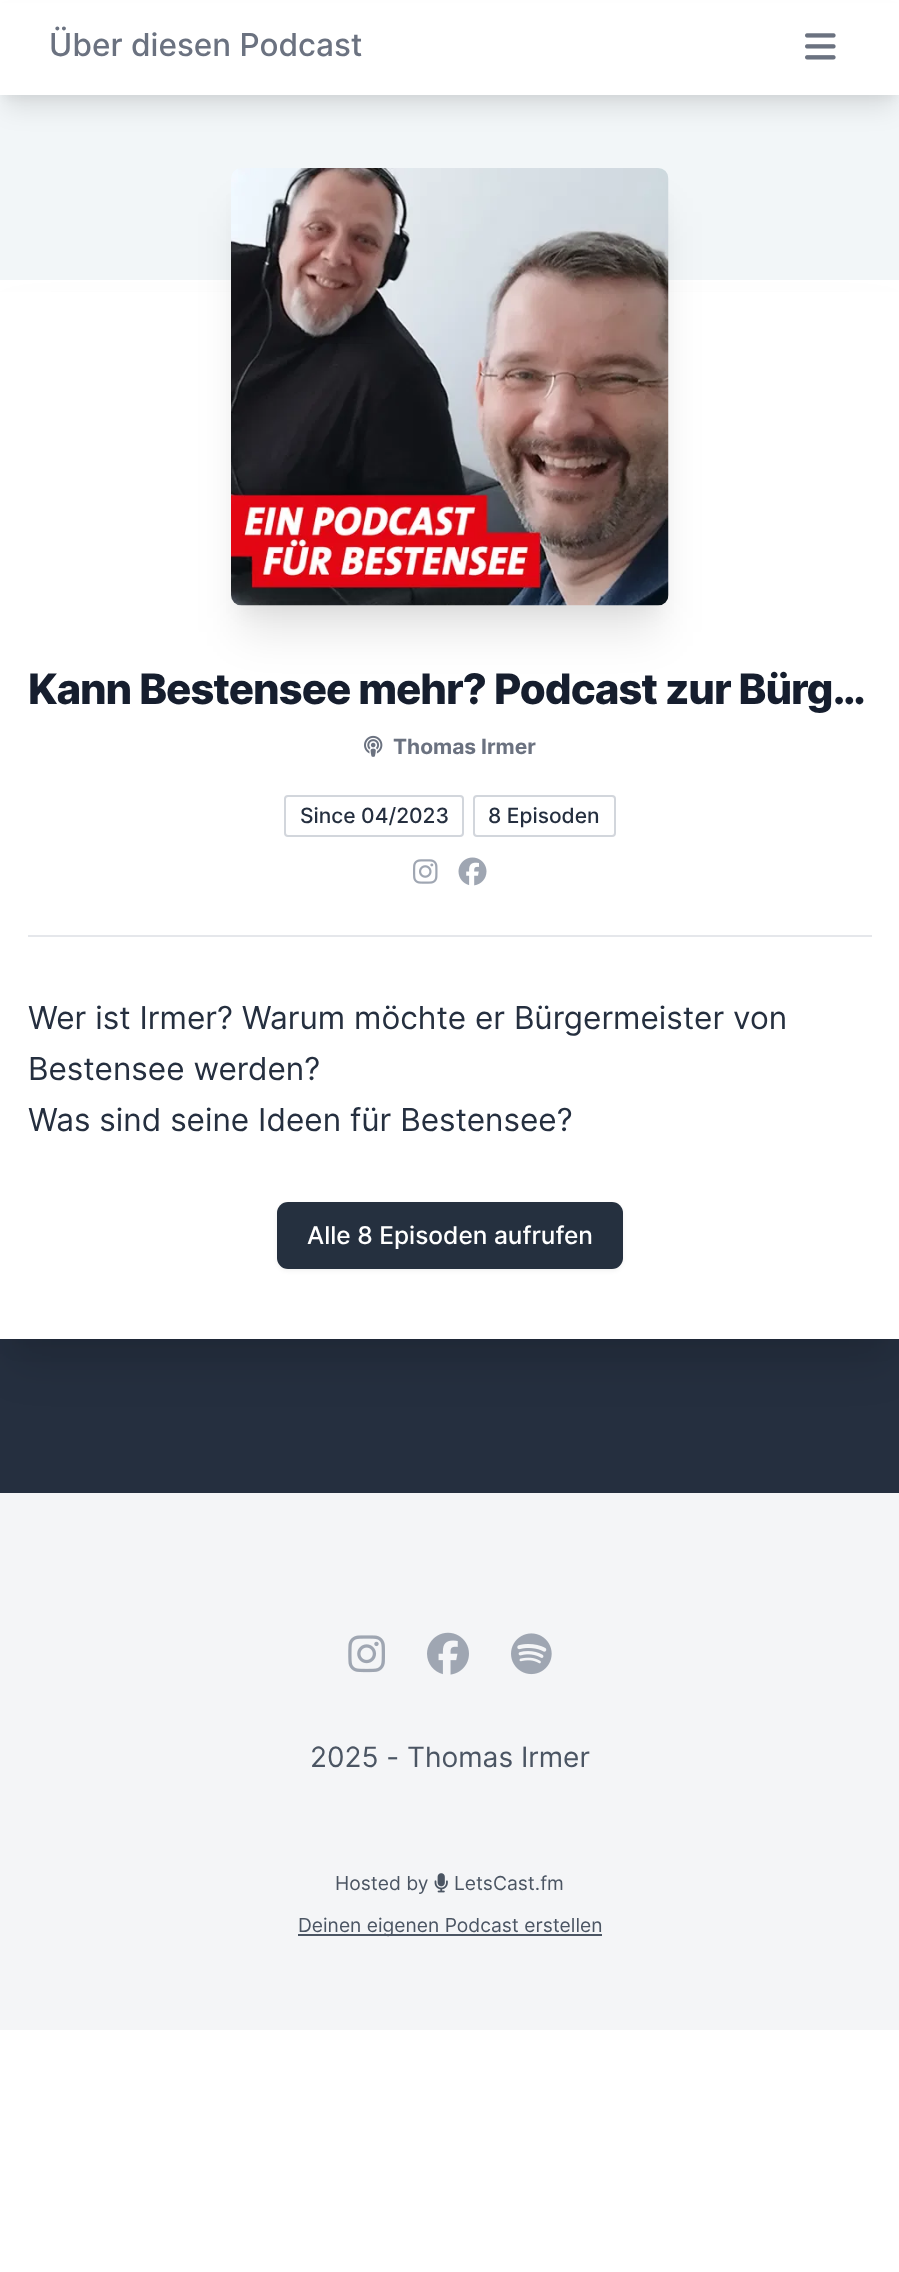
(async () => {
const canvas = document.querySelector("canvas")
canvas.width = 899
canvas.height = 2272
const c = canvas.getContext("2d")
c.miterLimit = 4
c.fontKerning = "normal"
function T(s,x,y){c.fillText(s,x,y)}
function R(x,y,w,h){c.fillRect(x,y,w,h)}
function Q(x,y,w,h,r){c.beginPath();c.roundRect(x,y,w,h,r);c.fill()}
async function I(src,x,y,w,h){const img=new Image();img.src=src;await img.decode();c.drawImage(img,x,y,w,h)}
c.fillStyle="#fff"
R(0,0,899,2272)
c.fillStyle="#f2f6f8"
R(0,95,899,185)
c.fillStyle="#0000000d"
c.filter="blur(5px)"
c.beginPath()
c.rect(4,11,892,87)
c.fill()
c.filter="none"
c.fillStyle="#0000001a"
c.filter="blur(13px)"
c.beginPath()
c.rect(5,23,889,84)
c.fill()
c.filter="none"
c.fillStyle="#fff"
R(0,3,899,92)
c.font="500 31.5px Inter"
c.fillStyle="#6b7280"
T("Über diesen Podcast",49,56)
await I("1.png",805,33,31,27)
c.fillStyle="#252f3f"
R(0,1339,899,154)
c.fillStyle="#0000000a"
c.filter="blur(9px)"
c.beginPath()
c.rect(9,306,882,1042)
c.fill()
c.filter="none"
c.fillStyle="#0000001a"
c.filter="blur(22px)"
c.beginPath()
c.rect(9,324,882,1041)
c.fill()
c.filter="none"
c.fillStyle="#fff"
R(0,292,899,1047)
c.fillStyle="#0000000a"
c.filter="blur(9px)"
c.beginPath()
c.roundRect(240,194,420,420,2)
c.fill()
c.filter="none"
c.fillStyle="#0000001a"
c.filter="blur(22px)"
c.beginPath()
c.roundRect(240,212,420,420,2)
c.fill()
c.filter="none"
await I("2.png",231,168,438,438)
c.letterSpacing="-1.05px"
c.font="800 42px Inter"
c.fillStyle="#161e2e"
T("Kann Bestensee mehr? Podcast zur Bürg…",28,704)
await I("3.png",364,735,19,22)
c.letterSpacing="0px"
c.font="bold 21px Inter"
c.fillStyle="#6b7280"
T("Thomas Irmer",393,754)
c.beginPath()
c.roundRect(285,796,178,40,3)
c.strokeStyle="#d2d6dc"
c.lineWidth=2
c.stroke()
c.font="500 21px Inter"
c.fillStyle="#252f3f"
T("Since 04/2023",300,823)
c.beginPath()
c.roundRect(474,796,141,40,3)
c.stroke()
T("8 Episoden",488,823)
await I("4.png",413,859,25,25)
await I("5.png",458,857,29,29)
c.fillStyle="#e5e7eb"
R(28,935,844,2)
c.font="31.5px Inter"
c.fillStyle="#252f3f"
T("Wer ist Irmer? Warum möchte er Bürgermeister von",28,1029)
T("Bestensee werden?",28,1080)
T("Was sind seine Ideen für Bestensee?",28,1131)
c.fillStyle="#0000000d"
c.filter="blur(2px)"
c.beginPath()
c.roundRect(277,1204,346,67,11)
c.fill()
c.filter="none"
c.fillStyle="#25303f"
Q(277,1202,346,67,11)
c.font="500 24.5px Inter"
c.fillStyle="#fff"
T("Alle 8 Episoden aufrufen",307,1244)
c.fillStyle="#f4f5f7"
R(0,1493,899,537)
await I("6.png",348,1635,37,38)
await I("7.png",427,1632,42,43)
await I("8.png",511,1633,41,42)
c.font="28px Inter"
c.fillStyle="#4b5563"
T("2025 - Thomas Irmer",310,1767)
c.font="19.25px Inter"
T("Hosted by",335,1890)
await I("9.png",434,1873,14,20)
T("LetsCast.fm",454,1890)
R(298,1934,304,2)
T("Deinen eigenen Podcast erstellen",298,1932)
})()
